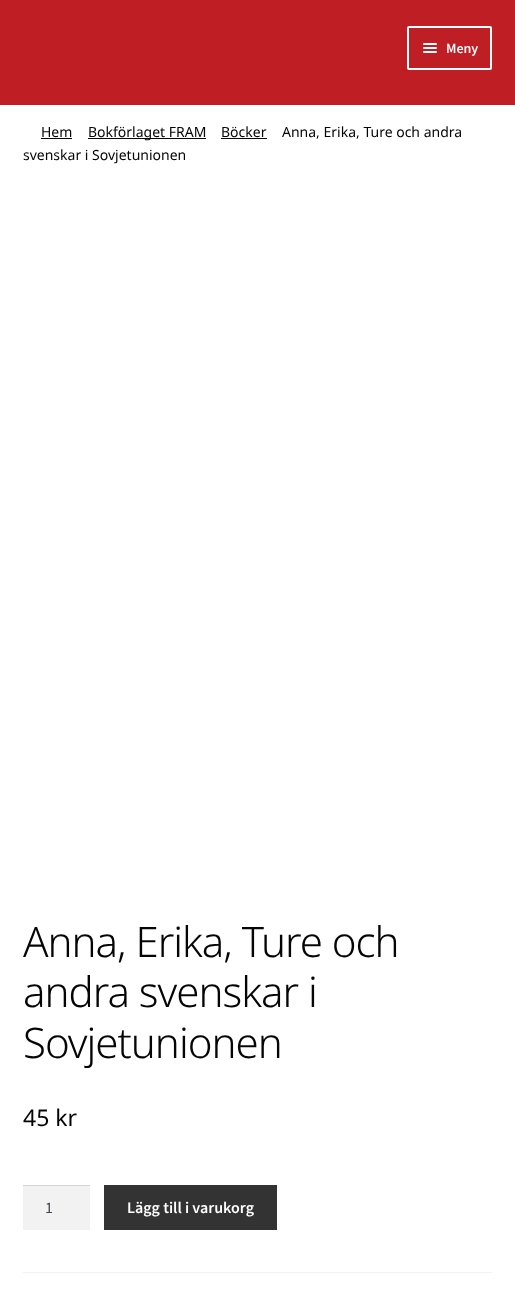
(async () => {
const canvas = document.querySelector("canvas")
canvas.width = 515
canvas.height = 1295
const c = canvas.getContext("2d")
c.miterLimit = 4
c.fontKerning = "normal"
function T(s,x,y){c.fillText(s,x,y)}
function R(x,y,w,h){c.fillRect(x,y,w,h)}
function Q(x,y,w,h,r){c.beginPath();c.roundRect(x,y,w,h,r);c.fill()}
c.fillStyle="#fff"
R(0,0,515,1295)
c.fillStyle="#c01e25"
R(0,0,515,105)
c.beginPath()
c.roundRect(408,27,83,42,1)
c.strokeStyle="#fff"
c.lineWidth=2
c.stroke()
c.fillStyle="#fff"
Q(423,43,14,2,1)
Q(423,47,14,2,1)
c.font="600 14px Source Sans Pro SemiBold"
T("Meny",446,53)
Q(423,51,14,2,1)
c.font="14px Noto Sans"
c.fillStyle="#050505"
T("Hem",41,137)
R(41,138,31,1)
R(88,138,118,1)
T("Bokförlaget FRAM",88,137)
T("Böcker",221,137)
R(221,138,46,1)
T("Anna, Erika, Ture och andra",282,137)
T("svenskar i Sovjetunionen",23,160)
c.letterSpacing="-1px"
c.font="300 42px Noto Sans"
T("Anna, Erika, Ture och",23,957)
T("andra svenskar i",23,1007)
T("Sovjetunionen",23,1058)
c.letterSpacing="0px"
c.font="23px Noto Sans"
T("45 kr",23,1126)
c.fillStyle="#f2f2f2"
R(23,1186,67,44)
c.fillStyle="#d4d4d4"
R(23,1185,67,1)
c.font="16px Source Sans Pro"
c.fillStyle="#43454b"
T("1",45,1213)
c.fillStyle="#333"
R(104,1185,173,45)
c.font="600 16px Source Sans Pro SemiBold"
c.fillStyle="#fff"
T("Lägg till i varukorg",127,1213)
c.fillStyle="#f2f2f2"
R(23,1272,469,1)
})()
